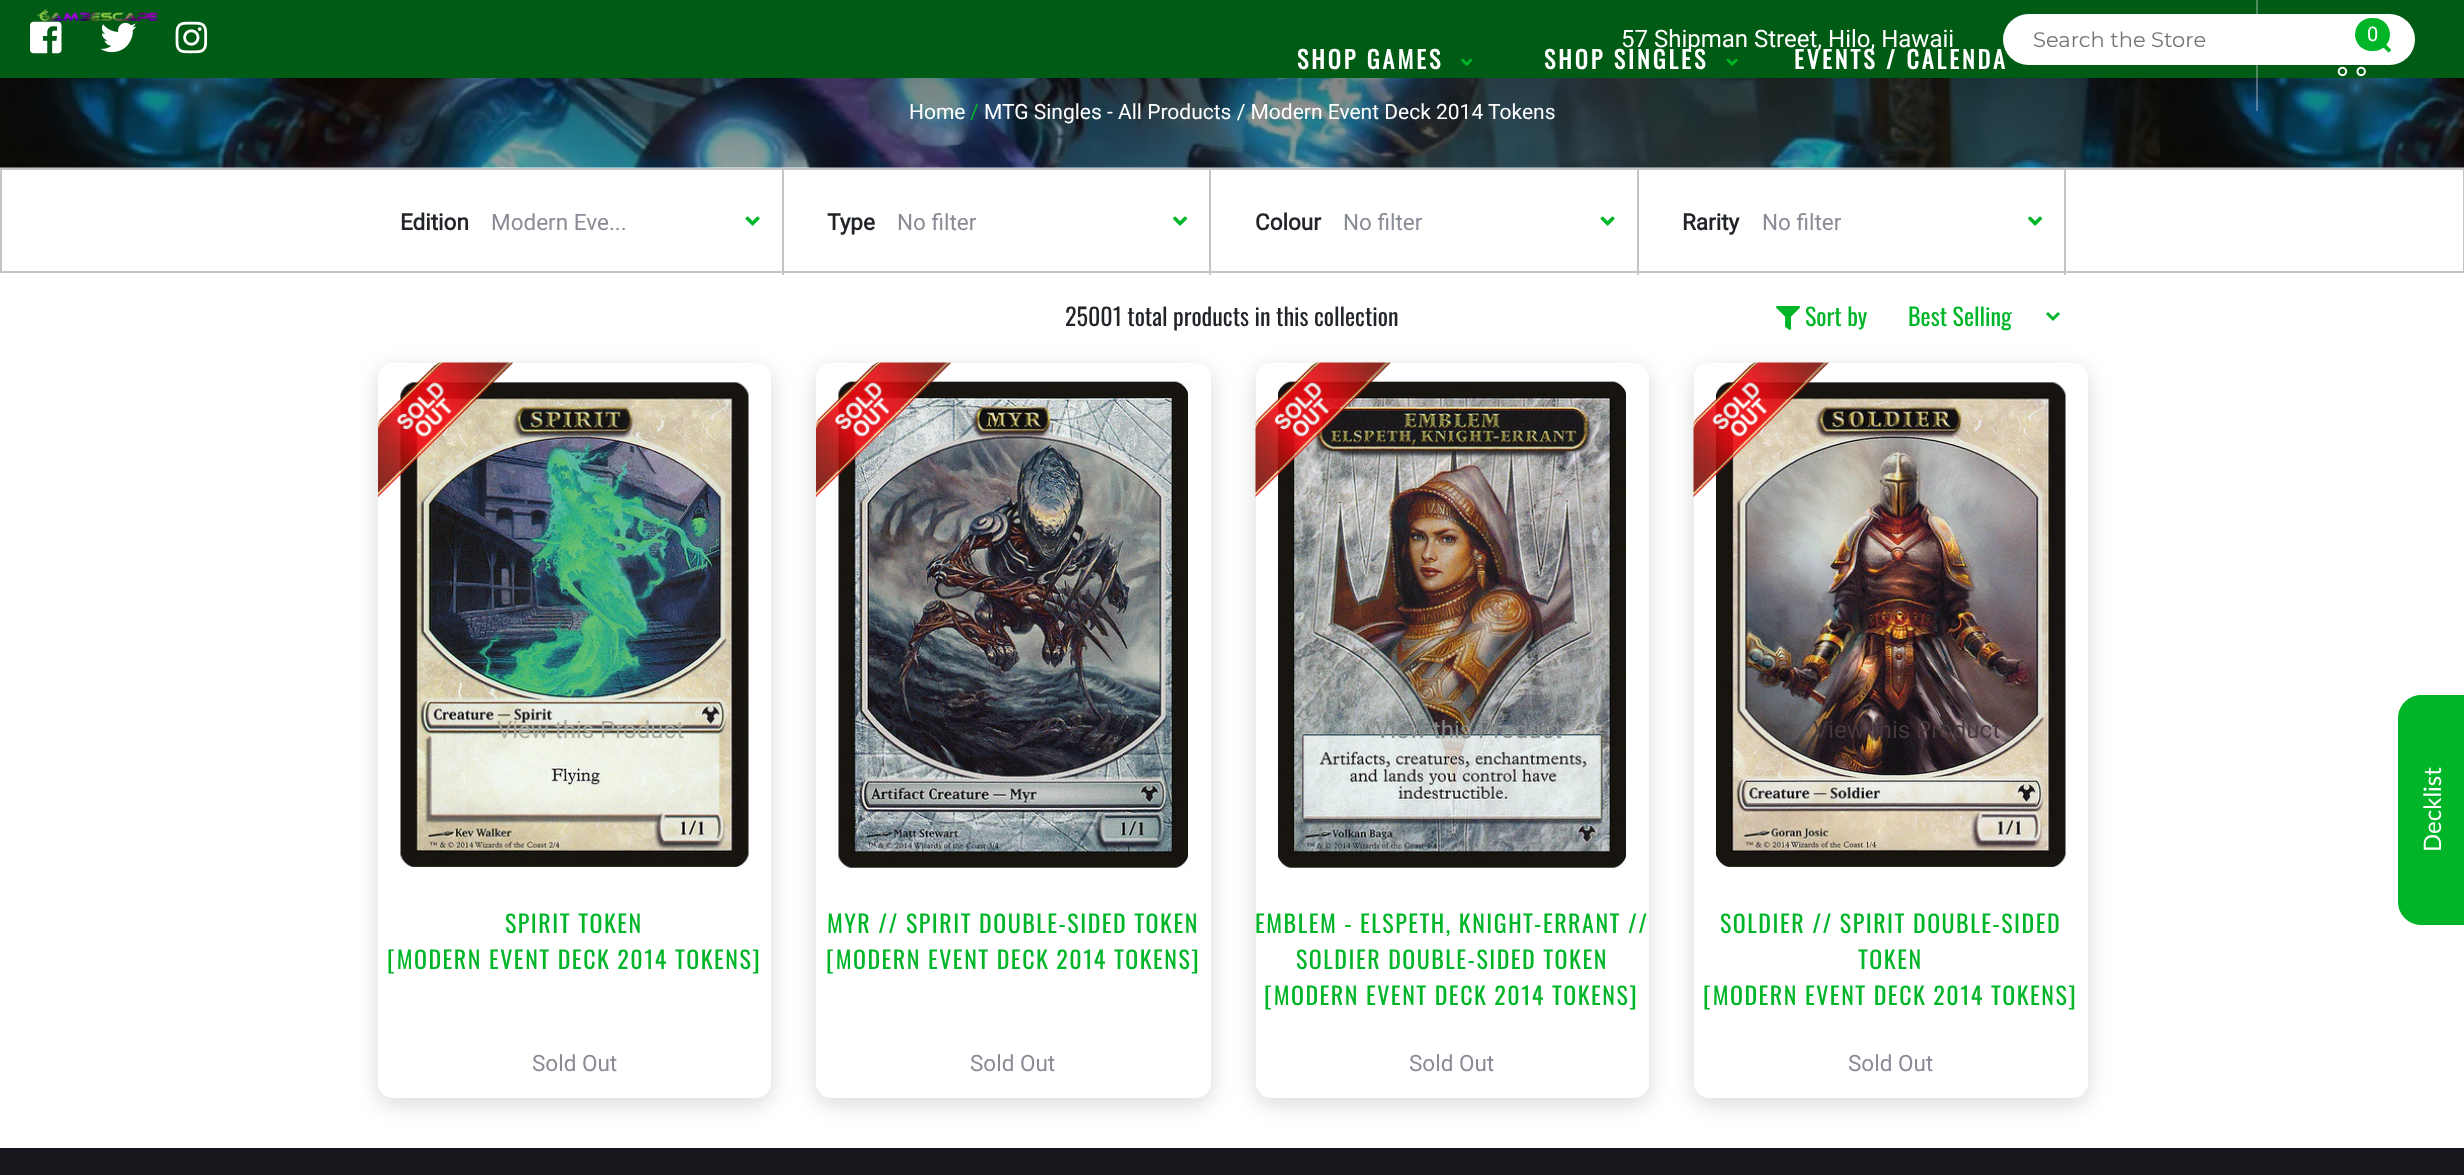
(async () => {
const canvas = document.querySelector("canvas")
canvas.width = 2464
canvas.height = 1175
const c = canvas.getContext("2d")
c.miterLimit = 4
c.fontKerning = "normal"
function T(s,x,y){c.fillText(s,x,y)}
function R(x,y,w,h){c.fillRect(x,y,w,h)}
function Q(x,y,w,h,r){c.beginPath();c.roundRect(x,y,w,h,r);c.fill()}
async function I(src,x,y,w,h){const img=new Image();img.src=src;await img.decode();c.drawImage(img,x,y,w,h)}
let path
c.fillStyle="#fff"
R(0,0,2464,1175)
c.fillStyle="#005b14"
R(0,0,2464,78)
await I("1.png",37,9,121,12)
c.fillStyle="#fff"
Q(2003,14,412,51,25.5)
await I("9.png",0,78,2464,90)
c.fillStyle="#ffffff4d"
R(2256,0,2,111)
await I("2.png",2337,40,33,37)
await I("8.png",2383,44,8,9)
c.fillStyle="#00b628"
Q(2355,18,35,33,16.5)
c.font="20px Roboto"
c.fillStyle="#fff"
T("0",2367,41)
c.letterSpacing="3px"
c.font="bold 24px Oswald"
T("SHOP GAMES",1297,69)
await I("3.png",1461,58,12,8)
T("SHOP SINGLES",1544,69)
await I("4.png",1726,58,12,8)
T("EVENTS / CALENDA",1794,69)
await I("5.png",30,21,32,33)
await I("6.png",100,22,37,31)
await I("7.png",175,21,33,33)
c.letterSpacing="0px"
c.font="24px Roboto"
T("57 Shipman Street, Hilo, Hawaii",1621,47)
c.font="21px Montserrat"
c.fillStyle="#757575"
T("Search the Store",2033,47)
c.font="21px Roboto"
c.fillStyle="#fff"
T("Home",909,119)
c.fillStyle="#00b628"
T("/",970,119)
c.fillStyle="#fff"
T("MTG Singles - All Products / Modern Event Deck 2014 Tokens",984,119)
c.strokeStyle="#c4c4c4"
c.lineWidth=2
c.strokeRect(1,169,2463,103)
c.fillStyle="#c4c4c4"
R(782,170,2,105)
c.font="bold 22.5px Roboto"
c.fillStyle="#212529"
T("Edition",400,230)
c.font="22.5px Roboto"
c.fillStyle="#898c95"
T("Modern Eve...",491,230)
await I("10.png",745,216,15,10)
c.fillStyle="#c4c4c4"
R(1209,170,2,105)
c.font="bold 22.5px Roboto"
c.fillStyle="#212529"
T("Type",827,230)
c.font="22.5px Roboto"
c.fillStyle="#898c95"
T("No filter",897,230)
await I("11.png",1173,216,15,10)
c.fillStyle="#c4c4c4"
R(1637,170,2,105)
c.font="bold 22.5px Roboto"
c.fillStyle="#212529"
T("Colour",1255,230)
c.font="22.5px Roboto"
c.fillStyle="#898c95"
T("No filter",1343,230)
await I("10.png",1600,216,15,10)
c.fillStyle="#c4c4c4"
R(2064,170,2,105)
c.font="bold 22.5px Roboto"
c.fillStyle="#212529"
T("Rarity",1682,230)
c.font="22.5px Roboto"
c.fillStyle="#898c95"
T("No filter",1762,230)
await I("11.png",2028,216,15,10)
c.font="24px Oswald"
c.fillStyle="#212529"
T("25001 total products in this collection",1065,326)
await I("12.png",1776,306,24,24)
c.fillStyle="#00b628"
T("Sort by",1805,326)
path = new Path2D("M2047 313l6 6l6-6")
c.strokeStyle="#00b628"
c.lineWidth=3
c.stroke(path)
T("Best Selling",1908,326)
c.fillStyle="#00000026"
c.filter="blur(11px)"
c.beginPath()
c.roundRect(378,369,393,735,15)
c.fill()
c.filter="none"
c.fillStyle="#fff"
Q(378,363,393,735,15)
await I("14.png",400,382,349,485)
await I("13.png",378,362,135,136)
c.font="24px Roboto"
c.fillStyle="#aaa99d"
T("View this Product",497,738)
c.letterSpacing="1.5px"
c.font="24px Oswald"
c.fillStyle="#00b628"
T("SPIRIT TOKEN",505,933)
T("[MODERN EVENT DECK 2014 TOKENS]",387,969)
c.letterSpacing="0px"
c.font="22.5px Roboto"
c.fillStyle="#898c95"
T("Sold Out",532,1071)
c.fillStyle="#00000026"
c.filter="blur(11px)"
c.beginPath()
c.roundRect(816,369,395,735,15)
c.fill()
c.filter="none"
c.fillStyle="#fff"
Q(816,363,395,735,15)
await I("16.png",838,381,350,487)
await I("15.png",816,362,135,136)
c.letterSpacing="1.5px"
c.font="24px Oswald"
c.fillStyle="#00b628"
T("MYR // SPIRIT DOUBLE-SIDED TOKEN",827,933)
T("[MODERN EVENT DECK 2014 TOKENS]",826,969)
c.letterSpacing="0px"
c.font="22.5px Roboto"
c.fillStyle="#898c95"
T("Sold Out",970,1071)
c.fillStyle="#00000026"
c.filter="blur(11px)"
c.beginPath()
c.roundRect(1256,369,393,735,15)
c.fill()
c.filter="none"
c.fillStyle="#fff"
Q(1256,363,393,735,15)
await I("18.png",1278,381,348,487)
await I("17.png",1255,362,136,135)
c.font="24px Roboto"
c.fillStyle="#858a8b"
T("View this Product",1375,738)
c.letterSpacing="1.5px"
c.font="24px Oswald"
c.fillStyle="#00b628"
T("EMBLEM - ELSPETH, KNIGHT-ERRANT //",1255,933)
T("SOLDIER DOUBLE-SIDED TOKEN",1296,969)
T("[MODERN EVENT DECK 2014 TOKENS]",1264,1005)
c.letterSpacing="0px"
c.font="22.5px Roboto"
c.fillStyle="#898c95"
T("Sold Out",1409,1071)
c.fillStyle="#00000026"
c.filter="blur(11px)"
c.beginPath()
c.roundRect(1694,369,394,735,15)
c.fill()
c.filter="none"
c.fillStyle="#fff"
Q(1694,363,394,735,15)
await I("20.png",1716,382,350,485)
await I("19.png",1693,362,136,135)
c.font="24px Roboto"
c.fillStyle="#46383c"
T("View this Product",1813,738)
c.letterSpacing="1.5px"
c.font="24px Oswald"
c.fillStyle="#00b628"
T("SOLDIER // SPIRIT DOUBLE-SIDED",1720,933)
T("TOKEN",1858,969)
T("[MODERN EVENT DECK 2014 TOKENS]",1703,1005)
c.letterSpacing="0px"
c.font="22.5px Roboto"
c.fillStyle="#898c95"
T("Sold Out",1848,1071)
c.fillStyle="#16171c"
R(0,1148,2464,27)
c.fillStyle="#00b628"
path = new Path2D("M2398 902v-184c0-13 11-23 23-23h43v230h-43c-12 0-23-10-23-23z")
c.fill(path)
c.font="24px Lato"
c.fillStyle="#fff"
c.save()
c.translate(2441,852)
c.rotate(-90 * Math.PI / 180)
c.fillText("Decklist",0,0)
c.restore()
})()
